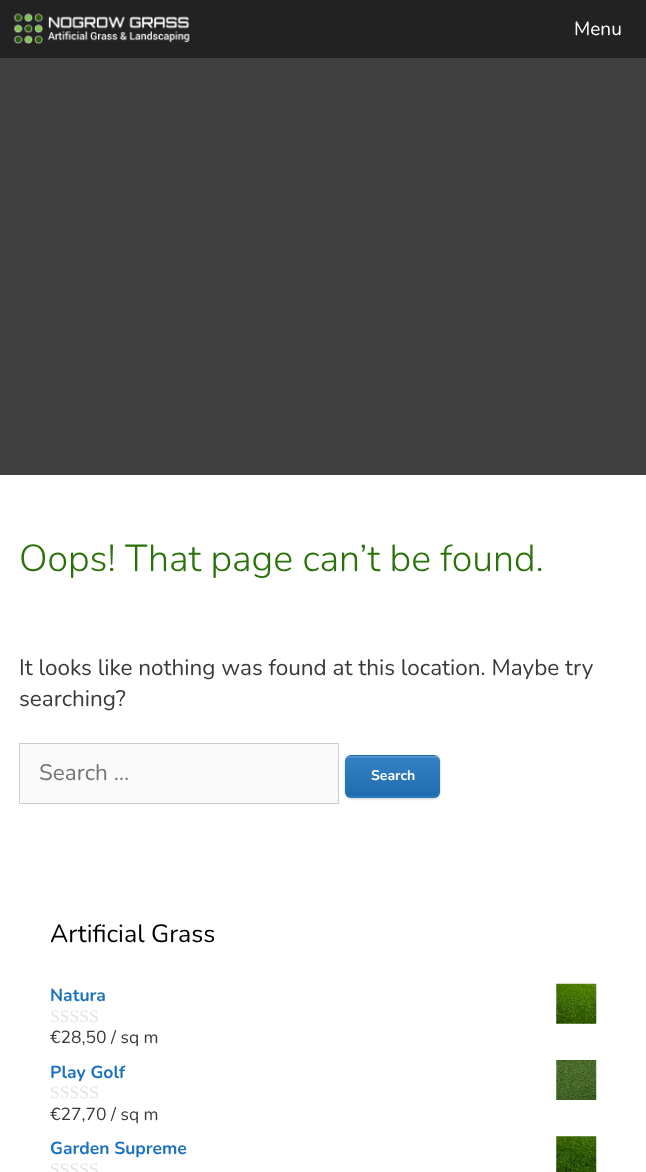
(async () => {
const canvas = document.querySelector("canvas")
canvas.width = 646
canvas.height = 1172
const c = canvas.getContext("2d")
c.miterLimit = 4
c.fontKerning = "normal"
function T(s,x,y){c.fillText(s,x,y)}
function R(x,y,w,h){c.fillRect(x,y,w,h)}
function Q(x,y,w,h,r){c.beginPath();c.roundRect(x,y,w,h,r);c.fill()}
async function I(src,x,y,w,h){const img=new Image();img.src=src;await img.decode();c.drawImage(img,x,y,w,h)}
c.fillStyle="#fff"
R(0,0,646,1172)
c.fillStyle="#222"
R(0,0,646,58)
await I("1.png",13,13,177,31)
c.font="19px Nunito"
c.fillStyle="#fff"
T("Menu",574,35)
c.fillStyle="#404040"
R(0,58,646,417)
c.font="300 37.5px Nunito"
c.fillStyle="#29720a"
T("Oops! That page can’t be found.",19,571)
c.font="22.5px Nunito"
c.fillStyle="#3a3a3a"
T("It looks like nothing was found at this location. Maybe try",19,675)
T("searching?",19,706)
c.fillStyle="#fafafa"
c.beginPath()
c.rect(19.5,743.5,319,60)
c.fill()
c.strokeStyle="#ccc"
c.stroke()
c.fillStyle="#757575"
T("Search …",39,780)
c.fillStyle="#00000033"
c.filter="blur(1px)"
c.beginPath()
c.roundRect(345,756,95,43,6)
c.fill()
c.filter="none"
c.fillStyle="#1e73be"
Q(345,755,95,43,6)
await I("2.png",345,755,95,43)
c.font="bold 14px Nunito"
c.fillStyle="#fff"
T("Search",371,780)
c.font="25px Nunito"
c.fillStyle="#000"
T("Artificial Grass",50,942)
c.font="bold 17.5px Nunito"
c.fillStyle="#1e73be"
T("Natura",50,1001)
await I("3.png",556,983,41,41)
c.font="17.5px Liberation Serif"
c.fillStyle="#e5e5e5"
T("SSSSS",50,1022)
c.font="17.5px Nunito"
c.fillStyle="#3a3a3a"
T("€28,50 / sq m",50,1043)
c.font="bold 17.5px Nunito"
c.fillStyle="#1e73be"
T("Play Golf",50,1078)
await I("4.png",556,1060,41,40)
c.font="17.5px Liberation Serif"
c.fillStyle="#e5e5e5"
T("SSSSS",50,1098)
c.font="17.5px Nunito"
c.fillStyle="#3a3a3a"
T("€27,70 / sq m",50,1120)
c.font="bold 17.5px Nunito"
c.fillStyle="#1e73be"
T("Garden Supreme",50,1154)
await I("5.png",556,1136,41,36)
c.font="17.5px Liberation Serif"
c.fillStyle="#e5e5e5"
T("SSSSS",50,1175)
})()
